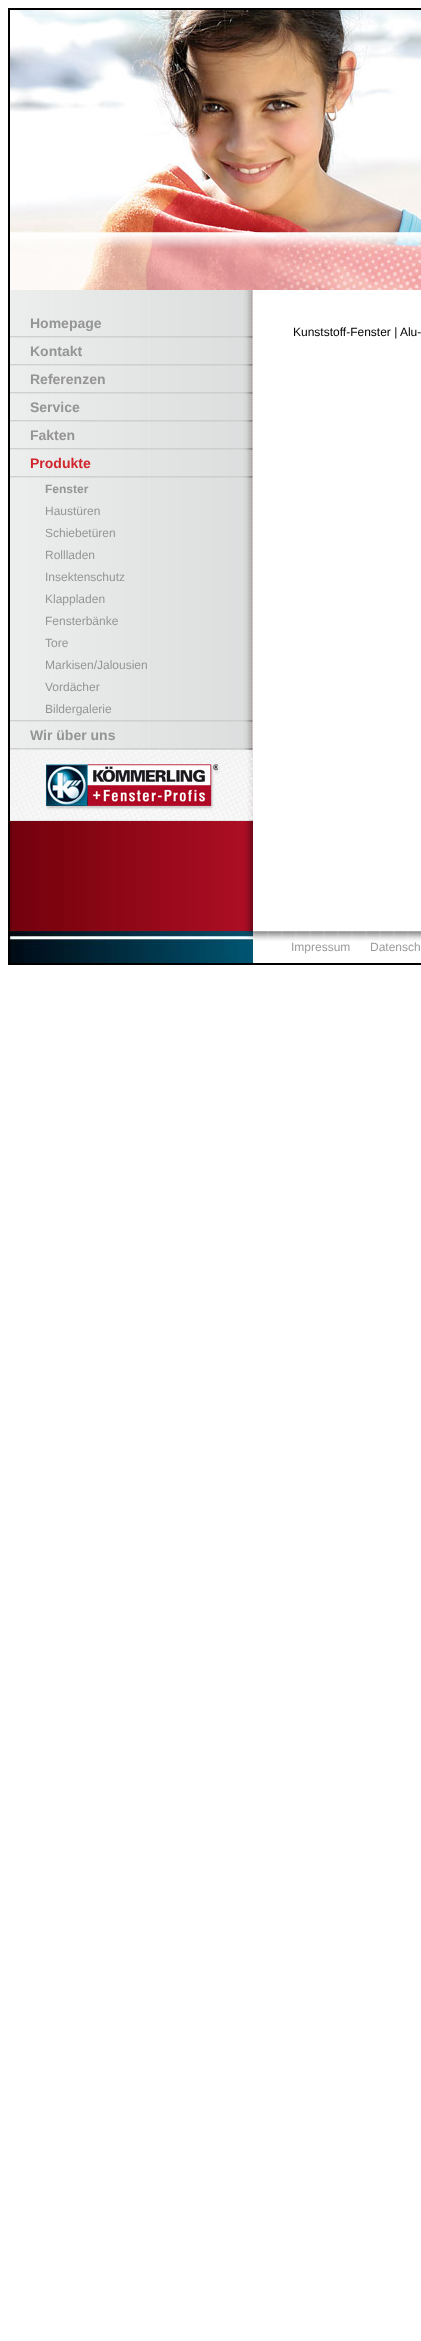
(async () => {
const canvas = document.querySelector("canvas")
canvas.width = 421
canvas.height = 2341
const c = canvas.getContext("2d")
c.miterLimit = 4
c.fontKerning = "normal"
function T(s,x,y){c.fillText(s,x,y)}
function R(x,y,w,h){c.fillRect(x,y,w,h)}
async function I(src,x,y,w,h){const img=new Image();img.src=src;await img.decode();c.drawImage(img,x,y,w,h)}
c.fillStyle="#fff"
R(0,0,421,2341)
c.strokeStyle="#000"
c.lineWidth=2
c.strokeRect(9,9,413,955)
await I("1.png",10,10,411,280)
await I("2.png",10,821,243,110)
await I("3.png",10,290,243,46)
c.font="bold 14px Liberation Sans"
c.fillStyle="#969596"
T("Homepage",30,328)
await I("4.png",10,336,243,2)
await I("5.png",10,338,243,26)
T("Kontakt",30,356)
await I("4.png",10,364,243,2)
await I("5.png",10,366,243,26)
T("Referenzen",30,384)
await I("4.png",10,392,243,2)
await I("5.png",10,394,243,26)
T("Service",30,412)
await I("4.png",10,420,243,2)
await I("5.png",10,422,243,26)
T("Fakten",30,440)
await I("4.png",10,448,243,2)
await I("5.png",10,450,243,26)
c.fillStyle="#d0262e"
T("Produkte",30,468)
await I("4.png",10,476,243,2)
await I("6.png",10,478,243,22)
c.font="bold 12px Liberation Sans"
c.fillStyle="#969596"
T("Fenster",45,493)
await I("6.png",10,500,243,22)
c.font="12px Liberation Sans"
T("Haustüren",45,515)
await I("6.png",10,522,243,22)
T("Schiebetüren",45,537)
await I("6.png",10,544,243,22)
T("Rollladen",45,559)
await I("6.png",10,566,243,22)
T("Insektenschutz",45,581)
await I("6.png",10,588,243,22)
T("Klappladen",45,603)
await I("6.png",10,610,243,22)
T("Fensterbänke",45,625)
await I("6.png",10,632,243,22)
T("Tore",45,647)
await I("6.png",10,654,243,22)
T("Markisen/Jalousien",45,669)
await I("6.png",10,676,243,22)
T("Vordächer",45,691)
await I("6.png",10,698,243,22)
T("Bildergalerie",45,713)
await I("4.png",10,720,243,2)
await I("5.png",10,722,243,26)
c.font="bold 14px Liberation Sans"
T("Wir über uns",30,740)
await I("4.png",10,748,243,2)
await I("7.png",10,750,243,71)
c.font="12px Liberation Sans"
c.fillStyle="#000"
T("Kunststoff-Fenster | Alu-",293,336)
await I("8.png",10,931,243,32)
await I("9.png",253,931,168,10)
c.fillStyle="#9d9b9c"
T("Impressum",291,951)
T("Datensch",370,951)
})()
